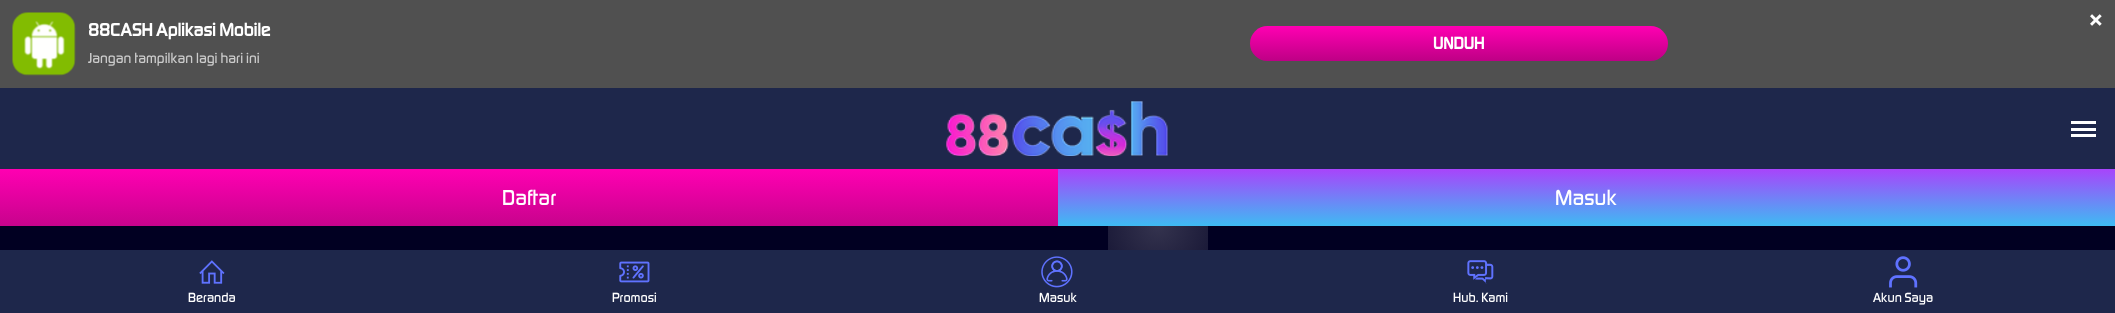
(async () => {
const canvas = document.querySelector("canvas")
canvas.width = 2115
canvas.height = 313
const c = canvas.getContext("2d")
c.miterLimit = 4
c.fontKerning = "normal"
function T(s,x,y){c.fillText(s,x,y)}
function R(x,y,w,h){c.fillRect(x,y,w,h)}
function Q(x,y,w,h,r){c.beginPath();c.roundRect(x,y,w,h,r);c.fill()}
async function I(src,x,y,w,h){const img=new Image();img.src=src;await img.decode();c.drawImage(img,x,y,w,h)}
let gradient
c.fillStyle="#fff"
R(0,0,2115,313)
c.fillStyle="#505050"
R(0,0,2115,88)
await I("1.png",12,12,64,64)
c.font="bold 26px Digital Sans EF"
c.fillStyle="#fff"
T("×",2089,29)
c.font="bold 18.75px Digital Sans EF"
T("88CASH Aplikasi Mobile",88,36)
c.font="500 15px Digital Sans EF"
c.fillStyle="#cbcbcb"
T("Jangan tampilkan lagi hari ini",88,63)
gradient = c.createLinearGradient(1459,26,1459,61)
gradient.addColorStop(0,"#ff00b2")
gradient.addColorStop(1,"#be0085")
c.fillStyle = gradient
Q(1250,26,418,35,17.5)
c.font="bold 17.5px Digital Sans EF"
c.fillStyle="#fff"
T("UNDUH",1433,49)
c.fillStyle="#1e274b"
R(0,88,2115,81)
await I("2.png",946,101,222,55)
c.fillStyle="#fff"
R(2071,128,25,3)
R(2071,121,25,3)
R(2071,134,25,3)
gradient = c.createLinearGradient(529,169,529,226)
gradient.addColorStop(0,"#ff00b2")
gradient.addColorStop(1,"#c7038c")
c.fillStyle = gradient
R(0,169,1058,57)
c.font="500 22.5px Digital Sans EF"
c.fillStyle="#fff"
T("Daftar",502,205)
gradient = c.createLinearGradient(1586,169,1586,226)
gradient.addColorStop(0,"#a844fb")
gradient.addColorStop(1,"#3ebbf3")
c.fillStyle = gradient
R(1058,169,1057,57)
c.fillStyle="#fff"
T("Masuk",1555,205)
c.fillStyle="#010022"
R(0,226,2115,24)
gradient = c.createRadialGradient(1158,226,0,1158,226,114)
gradient.addColorStop(0,"#34334e")
gradient.addColorStop(1,"#010022")
c.fillStyle = gradient
R(1108,226,100,24)
c.fillStyle="#1e274b"
R(0,250,2115,63)
await I("3.png",199,260,26,24)
c.font="500 13.75px Digital Sans EF"
c.fillStyle="#fff"
T("Beranda",188,302)
await I("4.png",619,261,31,22)
T("Promosi",612,302)
await I("5.png",1041,256,32,32)
T("Masuk",1039,302)
await I("6.png",1467,260,27,24)
T("Hub. Kami",1453,302)
await I("7.png",1889,256,29,32)
T("Akun Saya",1873,302)
})()
